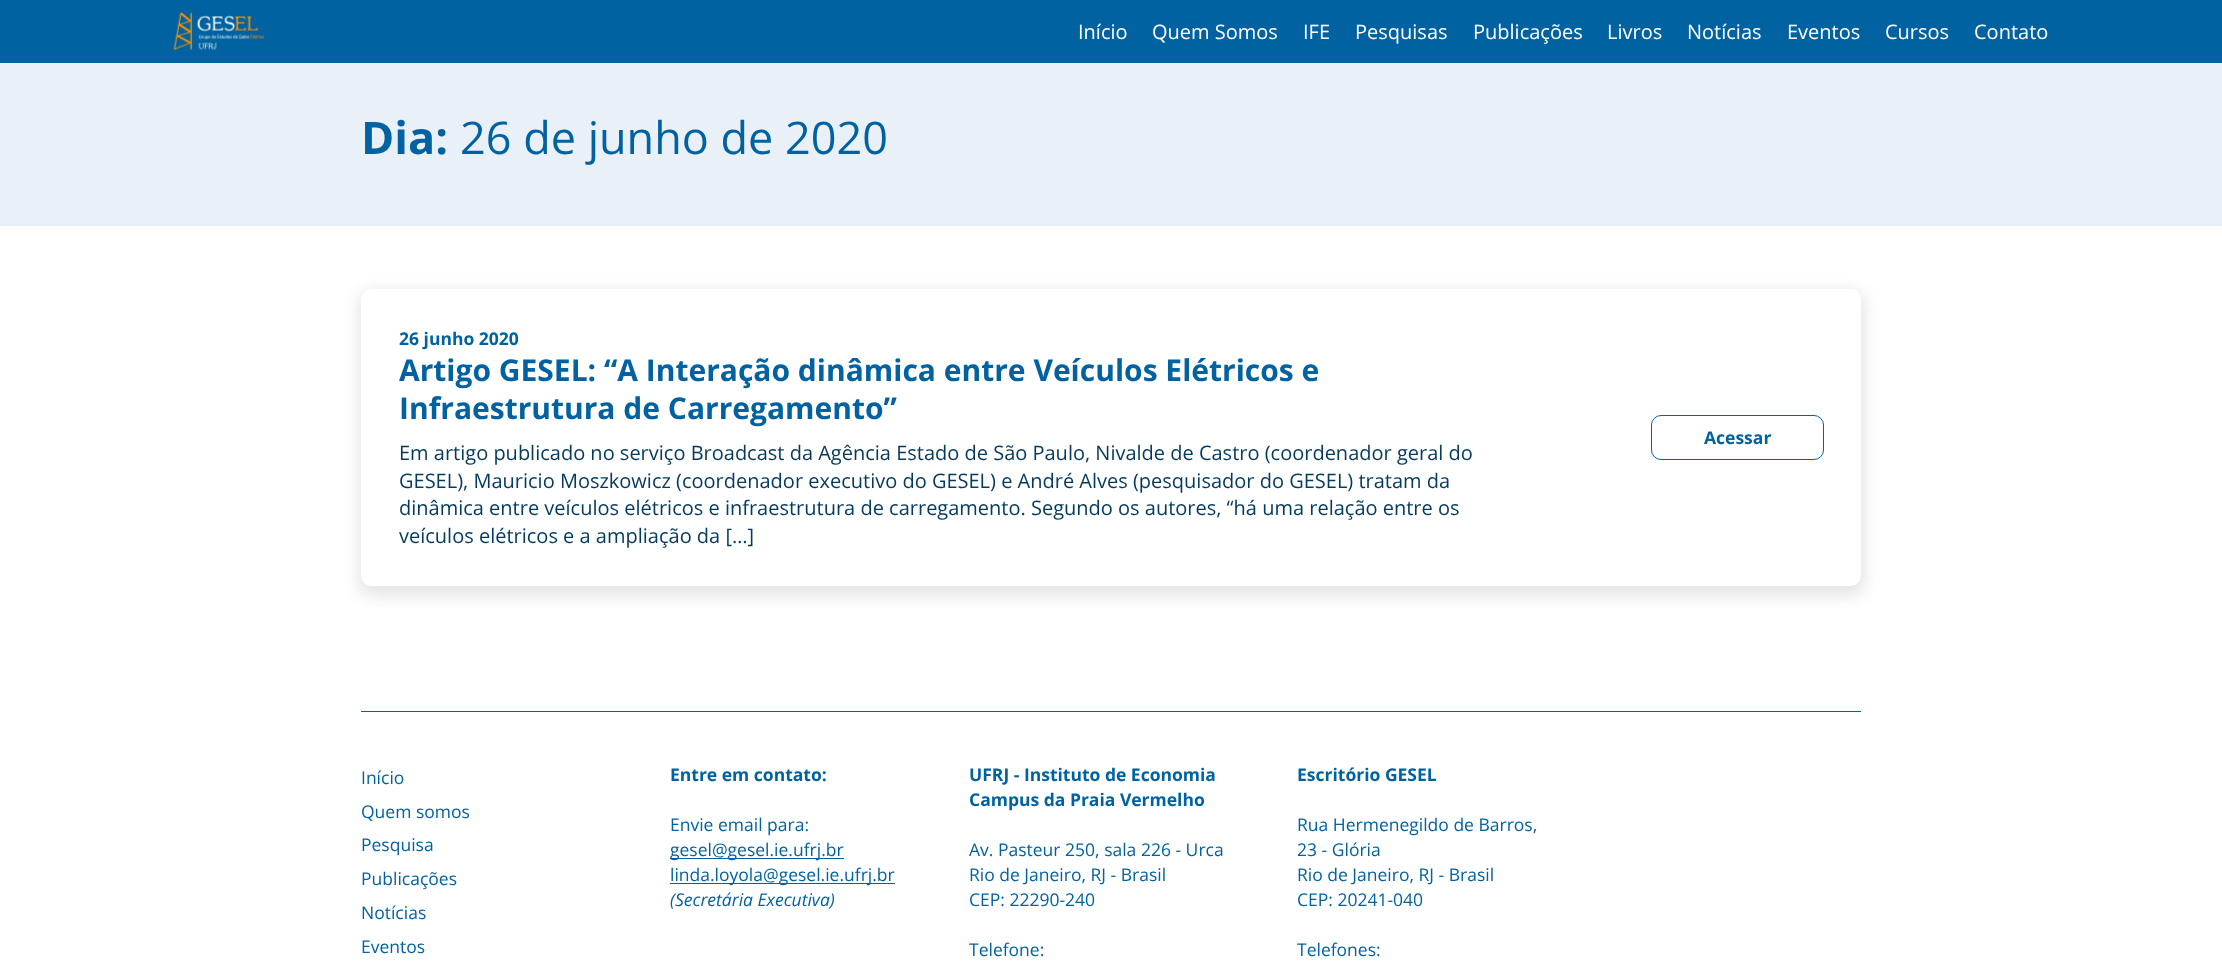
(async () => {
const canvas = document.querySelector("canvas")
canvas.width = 2222
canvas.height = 971
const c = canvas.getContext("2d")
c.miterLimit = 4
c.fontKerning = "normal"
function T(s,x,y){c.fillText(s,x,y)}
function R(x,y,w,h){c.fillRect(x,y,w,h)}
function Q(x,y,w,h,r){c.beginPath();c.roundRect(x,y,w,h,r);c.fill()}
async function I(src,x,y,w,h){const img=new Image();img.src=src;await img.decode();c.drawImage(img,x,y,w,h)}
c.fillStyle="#fff"
R(0,0,2222,971)
c.fillStyle="#0062a0"
R(0,0,2222,63)
await I("1.png",173,12,91,39)
c.font="20px Open Sans"
c.fillStyle="#fff"
T("Início",1078,39)
T("Quem Somos",1152,39)
T("IFE",1303,39)
T("Pesquisas",1355,39)
T("Publicações",1473,39)
T("Livros",1607,39)
T("Notícias",1687,39)
T("Eventos",1787,39)
T("Cursos",1885,39)
T("Contato",1974,39)
c.fillStyle="#eaf0f7"
R(0,63,2222,163)
c.font="bold 45px Open Sans"
c.fillStyle="#0062a0"
T("Dia:",361,154)
c.font="45px Open Sans"
T("26 de junho de 2020",460,154)
c.fillStyle="#0000001a"
c.filter="blur(7.5px)"
c.beginPath()
c.roundRect(358,291,1507,305,14)
c.fill()
c.filter="none"
c.fillStyle="#fff"
Q(361,289,1500,297,10)
c.font="bold 17.5px Open Sans"
c.fillStyle="#0062a0"
T("26 junho 2020",399,345)
c.font="bold 30px Open Sans"
T("Artigo GESEL: “A Interação dinâmica entre Veículos Elétricos e",399,381)
T("Infraestrutura de Carregamento”",399,419)
c.font="20px Open Sans"
c.fillStyle="#033a5d"
T("Em artigo publicado no serviço Broadcast da Agência Estado de São Paulo, Nivalde de Castro (coordenador geral do",399,460)
T("GESEL), Mauricio Moszkowicz (coordenador executivo do GESEL) e André Alves (pesquisador do GESEL) tratam da",399,488)
T("dinâmica entre veículos elétricos e infraestrutura de carregamento. Segundo os autores, “há uma relação entre os",399,515)
T("veículos elétricos e a ampliação da […]",399,543)
c.beginPath()
c.roundRect(1651.5,415.5,172,44,9.5)
c.strokeStyle="#0062a0"
c.stroke()
c.font="bold 17.5px Open Sans"
c.fillStyle="#0062a0"
T("Acessar",1704,444)
R(361,711,1500,1)
c.font="17.5px Open Sans"
T("Início",361,784)
T("Quem somos",361,818)
T("Pesquisa",361,851)
T("Publicações",361,885)
T("Notícias",361,919)
T("Eventos",361,953)
c.font="bold 17.5px Open Sans"
T("Entre em contato:",670,781)
c.font="17.5px Open Sans"
T("Envie email para:",670,831)
R(670,858,174,1)
T("gesel@gesel.ie.ufrj.br",670,856)
R(670,883,225,1)
T("linda.loyola@gesel.ie.ufrj.br",670,881)
c.font="italic 17.5px Open Sans"
T("(Secretária Executiva)",670,906)
c.font="bold 17.5px Open Sans"
T("UFRJ - Instituto de Economia",969,781)
T("Campus da Praia Vermelho",969,806)
c.font="17.5px Open Sans"
T("Av. Pasteur 250, sala 226 - Urca",969,856)
T("Rio de Janeiro, RJ - Brasil",969,881)
T("CEP: 22290-240",969,906)
T("Telefone:",969,956)
c.font="bold 17.5px Open Sans"
T("Escritório GESEL",1297,781)
c.font="17.5px Open Sans"
T("Rua Hermenegildo de Barros,",1297,831)
T("23 - Glória",1297,856)
T("Rio de Janeiro, RJ - Brasil",1297,881)
T("CEP: 20241-040",1297,906)
T("Telefones:",1297,956)
})()
